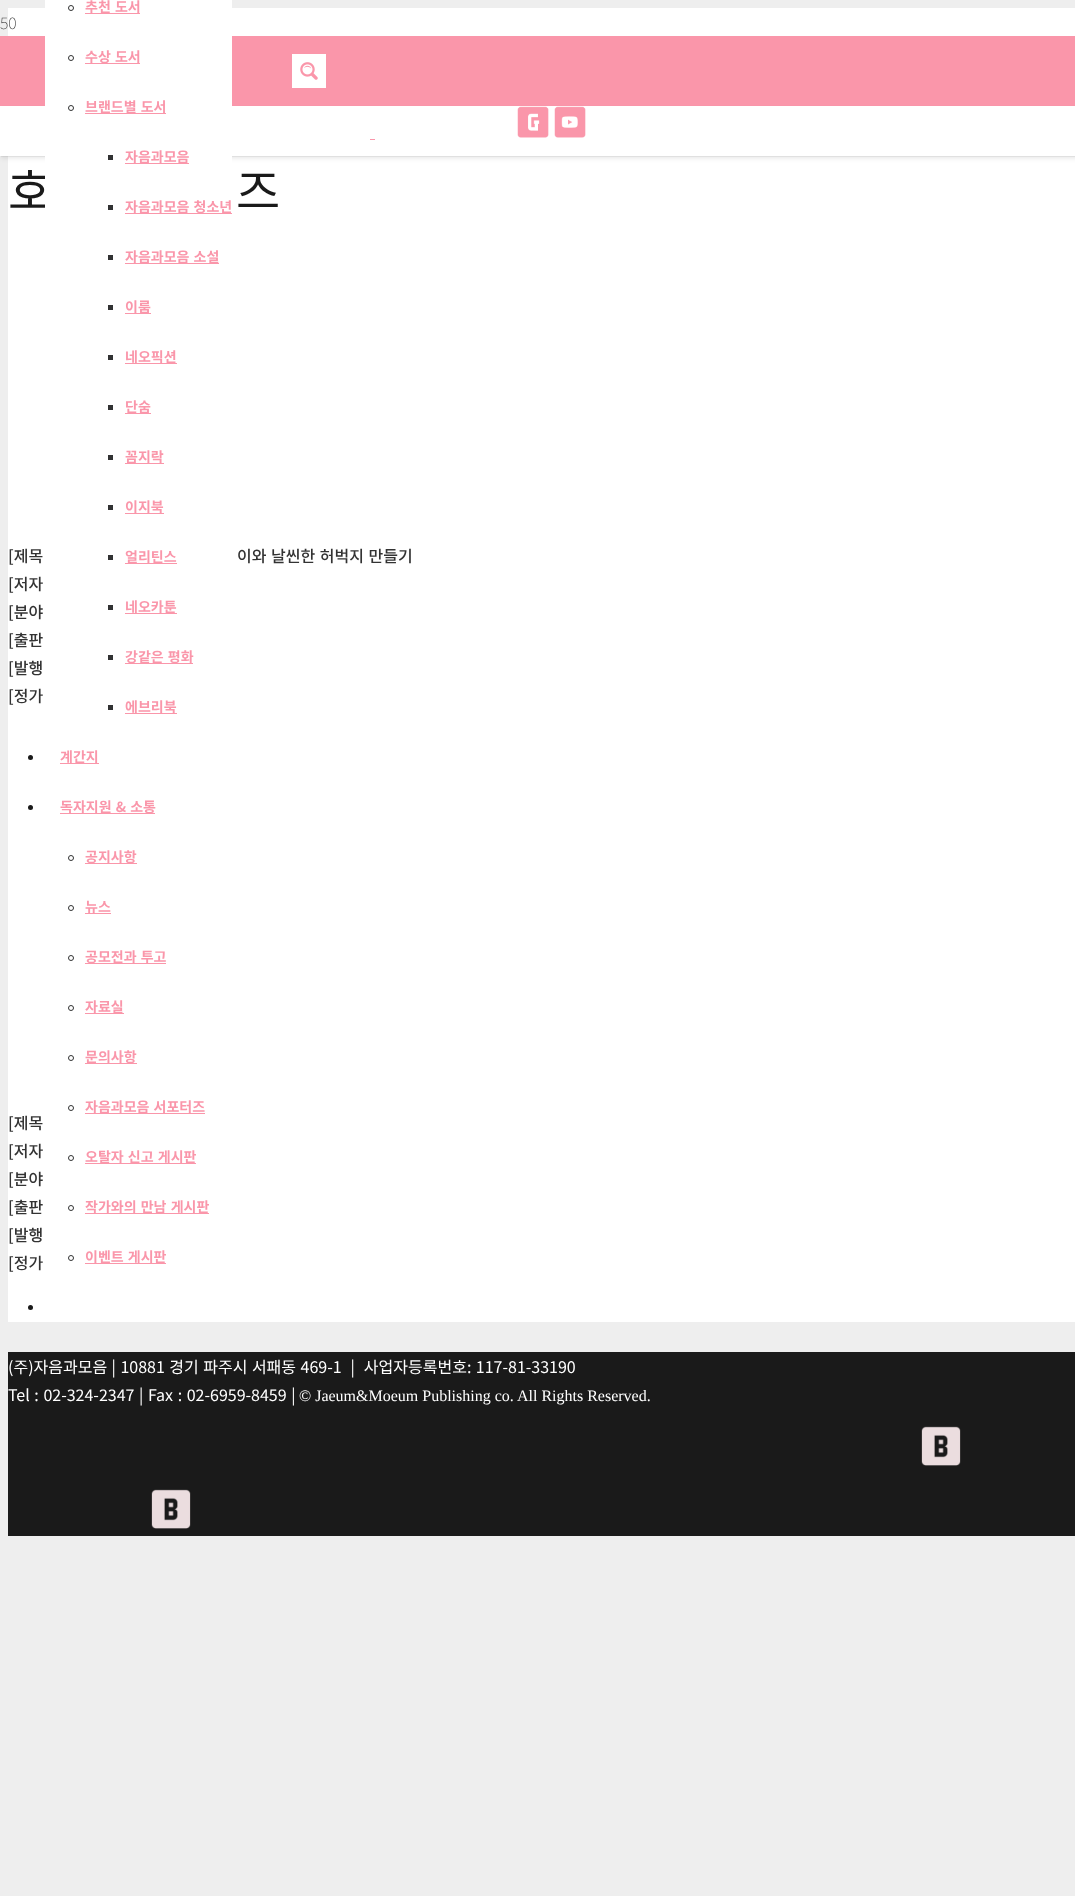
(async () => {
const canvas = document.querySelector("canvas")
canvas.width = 1075
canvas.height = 1896
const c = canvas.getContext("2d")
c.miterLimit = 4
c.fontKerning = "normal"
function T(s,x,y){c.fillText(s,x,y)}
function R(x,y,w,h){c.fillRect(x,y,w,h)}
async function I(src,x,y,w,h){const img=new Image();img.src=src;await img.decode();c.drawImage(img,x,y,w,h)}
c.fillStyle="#eee"
R(0,0,1075,1896)
c.fillStyle="#fff"
R(8,8,1067,1314)
c.font="100 16px Noto Sans KR"
c.fillStyle="#333"
T("50",0,29)
c.fillStyle="#0000000d"
c.filter="blur(0.5px)"
c.beginPath()
c.rect(1,109,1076,48)
c.fill()
c.filter="none"
c.fillStyle="#fa96aa"
R(0,36,1075,70)
c.fillStyle="#0000001a"
c.filter="blur(2.5px)"
c.beginPath()
c.rect(1,110,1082,48)
c.fill()
c.filter="none"
c.fillStyle="#fff"
R(0,106,1075,50)
c.letterSpacing="-1px"
c.wordSpacing="3px"
c.font="48px Noto Sans KR"
c.fillStyle="#1a1a1a"
T("호",8,209)
c.fillStyle="#fff"
R(45,0,187,208)
c.beginPath()
c.arc(71,8,2.5,0,7)
c.strokeStyle="#313233"
c.stroke()
c.fillStyle="#fa96aa"
R(85,13,55,1)
c.letterSpacing="0px"
c.wordSpacing="1px"
c.font="bold 14px Noto Sans KR"
T("추천 도서",85,12)
c.beginPath()
c.arc(71,58,2.5,0,7)
c.stroke()
R(85,63,55,1)
T("수상 도서",85,62)
c.beginPath()
c.arc(71,108,2.5,0,7)
c.stroke()
R(85,113,81,1)
T("브랜드별 도서",85,112)
c.fillStyle="#313233"
R(108,155,5,5)
c.fillStyle="#fa96aa"
R(125,163,64,1)
c.wordSpacing="0px"
T("자음과모음",125,162)
c.fillStyle="#313233"
R(108,205,5,5)
c.fillStyle="#fa96aa"
R(125,213,107,1)
c.wordSpacing="1px"
T("자음과모음 청소년",125,212)
c.fillStyle="#313233"
R(108,255,5,5)
c.fillStyle="#fa96aa"
R(125,263,94,1)
T("자음과모음 소설",125,262)
c.fillStyle="#313233"
R(108,305,5,5)
c.fillStyle="#fa96aa"
R(125,313,26,1)
c.wordSpacing="0px"
T("이룸",125,312)
c.fillStyle="#313233"
R(108,355,5,5)
c.fillStyle="#fa96aa"
R(125,363,52,1)
T("네오픽션",125,362)
c.fillStyle="#313233"
R(108,405,5,5)
c.fillStyle="#fa96aa"
R(125,413,26,1)
T("단숨",125,412)
c.fillStyle="#313233"
R(108,455,5,5)
c.fillStyle="#fa96aa"
R(125,463,39,1)
T("꼼지락",125,462)
c.fillStyle="#313233"
R(108,505,5,5)
c.fillStyle="#fa96aa"
R(125,513,39,1)
T("이지북",125,512)
c.fillStyle="#313233"
R(108,555,5,5)
c.fillStyle="#fa96aa"
R(125,563,52,1)
T("얼리틴스",125,562)
c.fillStyle="#313233"
R(108,605,5,5)
c.fillStyle="#fa96aa"
R(125,613,52,1)
T("네오카툰",125,612)
c.fillStyle="#313233"
R(108,655,5,5)
c.fillStyle="#fa96aa"
R(125,663,68,1)
c.wordSpacing="1px"
T("강같은 평화",125,662)
c.fillStyle="#313233"
R(108,705,5,5)
c.fillStyle="#fa96aa"
R(125,713,52,1)
c.wordSpacing="0px"
T("에브리북",125,712)
c.fillStyle="#1a1a1a"
c.beginPath()
c.arc(30.5,757.5,2.5,0,7)
c.fill()
c.fillStyle="#fa96aa"
R(60,763,39,1)
T("계간지",60,762)
c.fillStyle="#1a1a1a"
c.beginPath()
c.arc(30.5,807.5,2.5,0,7)
c.fill()
c.fillStyle="#fa96aa"
R(60,813,95,1)
c.wordSpacing="1px"
T("독자지원 & 소통",60,812)
c.beginPath()
c.arc(71,858,2.5,0,7)
c.stroke()
R(85,863,52,1)
c.wordSpacing="0px"
T("공지사항",85,862)
c.beginPath()
c.arc(71,908,2.5,0,7)
c.stroke()
R(85,913,26,1)
T("뉴스",85,912)
c.beginPath()
c.arc(71,958,2.5,0,7)
c.stroke()
R(85,963,81,1)
c.wordSpacing="1px"
T("공모전과 투고",85,962)
c.beginPath()
c.arc(71,1008,2.5,0,7)
c.stroke()
R(85,1013,39,1)
c.wordSpacing="0px"
T("자료실",85,1012)
c.beginPath()
c.arc(71,1058,2.5,0,7)
c.stroke()
R(85,1063,52,1)
T("문의사항",85,1062)
c.beginPath()
c.arc(71,1108,2.5,0,7)
c.stroke()
R(85,1113,120,1)
c.wordSpacing="1px"
T("자음과모음 서포터즈",85,1112)
c.beginPath()
c.arc(71,1158,2.5,0,7)
c.stroke()
R(85,1163,111,1)
T("오탈자 신고 게시판",85,1162)
c.beginPath()
c.arc(71,1208,2.5,0,7)
c.stroke()
R(85,1213,124,1)
T("작가와의 만남 게시판",85,1212)
c.beginPath()
c.arc(71,1258,2.5,0,7)
c.stroke()
R(85,1263,81,1)
T("이벤트 게시판",85,1262)
c.fillStyle="#1a1a1a"
c.beginPath()
c.arc(30.5,1307.5,2.5,0,7)
c.fill()
await I("1.png",517,106,32,32)
await I("2.png",554,106,32,32)
c.fillStyle="#fa96aa"
R(370,139,5,1)
c.fillStyle="#fff"
R(292,54,34,34)
await I("3.png",300,62,18,18)
c.letterSpacing="-1px"
c.wordSpacing="3px"
c.font="48px Noto Sans KR"
c.fillStyle="#1a1a1a"
T("즈",236,209)
c.letterSpacing="0px"
c.wordSpacing="0px"
c.font="500 16px Noto Sans KR"
c.fillStyle="#333"
T("[제목",8,562)
c.wordSpacing="1px"
T("이와 날씬한 허벅지 만들기",237,562)
c.wordSpacing="0px"
T("[저자",8,590)
T("[분야",8,618)
c.wordSpacing="1px"
T("[출판",8,646)
T("[발행",8,674)
c.wordSpacing="0px"
T("[정가",8,702)
T("[제목",8,1129)
T("[저자",8,1157)
T("[분야",8,1185)
c.wordSpacing="1px"
T("[출판",8,1213)
T("[발행",8,1241)
c.wordSpacing="0px"
T("[정가",8,1269)
c.fillStyle="#1a1a1a"
R(8,1352,1067,184)
c.wordSpacing="0.9px"
c.font="16px Noto Sans KR"
c.fillStyle="#fff"
T("(주)자음과모음 | 10881 경기 파주시 서패동 469-1  |  사업자등록번호: 117-81-33190",8,1373)
c.wordSpacing="1px"
T("Tel : 02-324-2347 | Fax : 02-6959-8459 |",8,1401)
c.wordSpacing="0px"
c.font="16px Liberation Serif"
T("© Jaeum&Moeum Publishing co. All Rights Reserved.",299,1401)
await I("4.png",921,1426,40,40)
await I("4.png",151,1489,40,40)
})()
